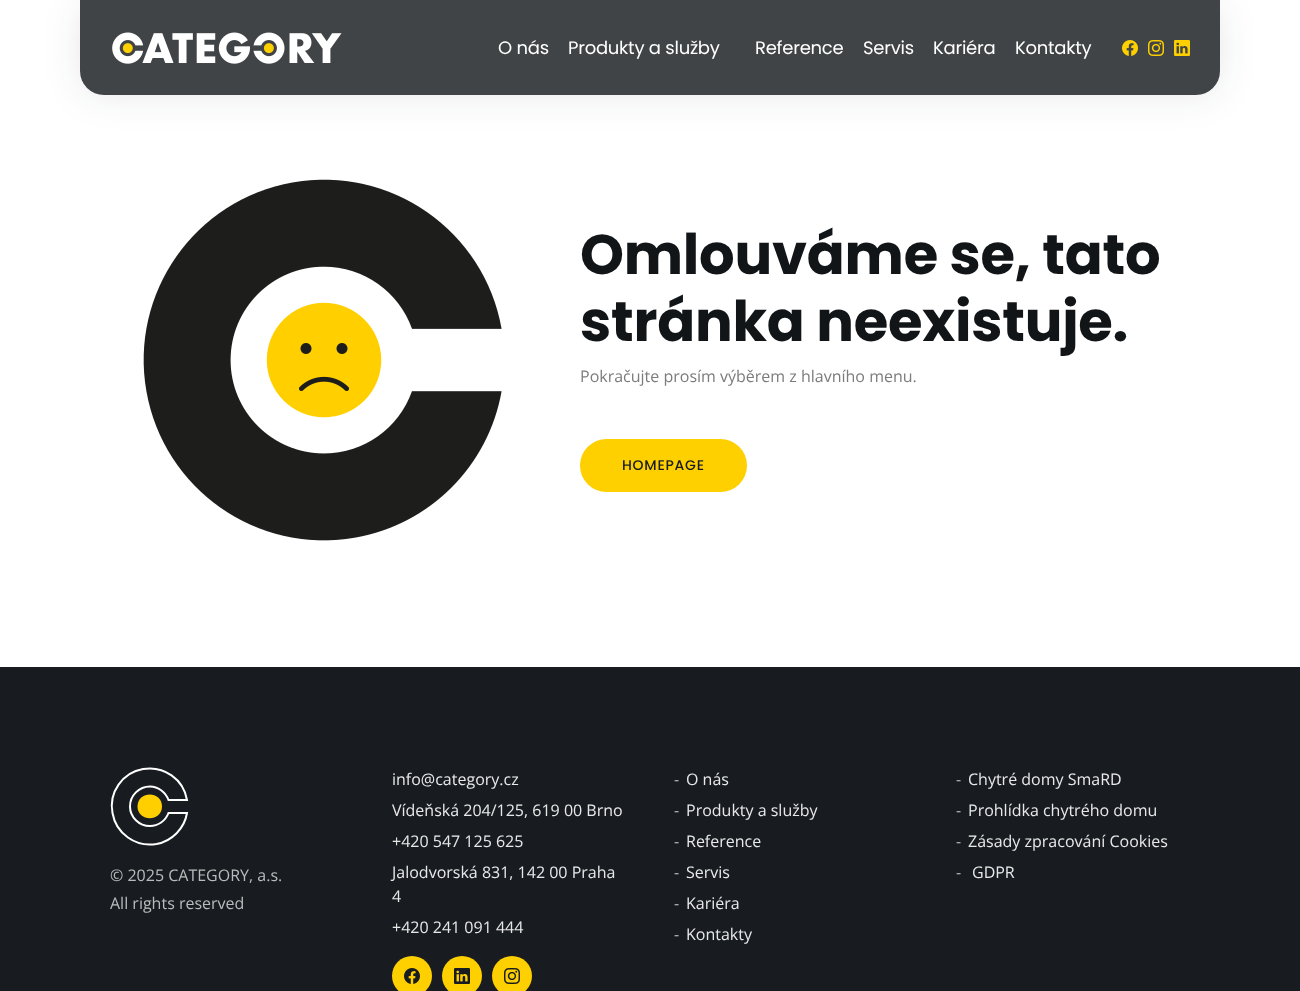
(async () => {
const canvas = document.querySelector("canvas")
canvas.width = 1300
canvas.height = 991
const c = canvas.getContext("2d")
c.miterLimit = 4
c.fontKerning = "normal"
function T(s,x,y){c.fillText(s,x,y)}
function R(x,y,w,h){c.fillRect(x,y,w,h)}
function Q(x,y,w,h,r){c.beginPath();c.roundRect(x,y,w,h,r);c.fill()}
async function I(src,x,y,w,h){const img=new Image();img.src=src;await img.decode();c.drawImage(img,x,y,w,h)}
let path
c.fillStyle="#fff"
R(0,0,1300,991)
c.save()
path = new Path2D("M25 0h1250v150h-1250zm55 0h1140v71c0 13.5-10.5 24-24 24h-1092c-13.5 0-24-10.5-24-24z")
c.clip(path,"evenodd")
c.fillStyle="#16191c1a"
c.filter="blur(18px)"
c.beginPath()
c.roundRect(80,0,1140,95,24)
c.fill()
c.filter="none"
c.restore()
c.fillStyle="#121518cc"
c.beginPath()
c.roundRect(80,0,1140,95,[0,0,24,24])
c.fill()
await I("1.png",112,32,230,32)
c.letterSpacing="-0.25px"
c.font="18px Poppins"
c.fillStyle="#fff"
T("O nás",498,54)
T("Produkty a služby",568,54)
T("Reference",755,54)
T("Servis",863,54)
T("Kariéra",933,54)
T("Kontakty",1015,54)
await I("2.png",1122,40,16,16)
await I("3.png",1148,40,16,16)
await I("4.png",1174,40,16,16)
await I("5.png",143,179,359,362)
c.font="bold 56px Poppins"
c.fillStyle="#121518"
T("Omlouváme se, tato",580,274)
T("stránka neexistuje.",580,341)
c.letterSpacing="0px"
c.font="16px Open Sans"
c.fillStyle="#7c7c7c"
T("Pokračujte prosím výběrem z hlavního menu.",580,382)
c.fillStyle="#ffd000"
Q(580,439,167,53,26.5)
c.letterSpacing="0.75px"
c.font="500 14px Poppins"
c.fillStyle="#181c20"
T("HOMEPAGE",622,470)
R(0,667,1300,324)
c.letterSpacing="0px"
c.font="16px Open Sans"
c.fillStyle="#e8e8e9"
T("info@category.cz",392,785)
T("Vídeňská 204/125, 619 00 Brno",392,816)
T("+420 547 125 625",392,847)
T("Jalodvorská 831, 142 00 Praha",392,878)
T("4",392,902)
T("+420 241 091 444",392,933)
c.fillStyle="#ffd000"
c.beginPath()
c.arc(412,976,20,0,7)
c.fill()
await I("6.png",404,968,16,16)
c.beginPath()
c.arc(462,976,20,0,7)
c.fill()
await I("7.png",454,968,16,16)
c.beginPath()
c.arc(512,976,20,0,7)
c.fill()
await I("8.png",504,968,16,16)
c.fillStyle="#babbbc"
T("-",674,785)
c.fillStyle="#e8e8e9"
T("O nás",686,785)
c.fillStyle="#babbbc"
T("-",674,816)
c.fillStyle="#e8e8e9"
T("Produkty a služby",686,816)
c.fillStyle="#babbbc"
T("-",674,847)
c.fillStyle="#e8e8e9"
T("Reference",686,847)
c.fillStyle="#babbbc"
T("-",674,878)
c.fillStyle="#e8e8e9"
T("Servis",686,878)
c.fillStyle="#babbbc"
T("-",674,909)
c.fillStyle="#e8e8e9"
T("Kariéra",686,909)
c.fillStyle="#babbbc"
T("-",674,940)
c.fillStyle="#e8e8e9"
T("Kontakty",686,940)
c.fillStyle="#babbbc"
T("-",956,785)
c.fillStyle="#e8e8e9"
T("Chytré domy SmaRD",968,785)
c.fillStyle="#babbbc"
T("-",956,816)
c.fillStyle="#e8e8e9"
T("Prohlídka chytrého domu",968,816)
c.fillStyle="#babbbc"
T("-",956,847)
c.fillStyle="#e8e8e9"
T("Zásady zpracování Cookies",968,847)
c.fillStyle="#babbbc"
T("-",956,878)
c.fillStyle="#e8e8e9"
T("GDPR",972,878)
c.fillStyle="#ffcf00"
path = new Path2D("M162 806.5c0 15.5-24.5 15.5-24.5 0c0-16 24.5-16 24.5 0")
c.fill(path)
path = new Path2D("M150 826c-11 0-20-9-20-19.5c0-11 9-20 20-20c8 0 15.5 5.5 18.5 13.5h18.5c-3.5-21-23-34.5-44-31c-20.5 3.5-34.5 23.5-30.5 44c3.5 20.5 23 34.5 44 31c15.5-3 28-15.5 30.5-31h-18.5c-3 8-10.5 13-18.5 13")
c.strokeStyle="#fff"
c.lineWidth=2
c.stroke(path)
c.fillStyle="#babbbc"
T("© 2025 CATEGORY, a.s.",110,881)
T("All rights reserved",110,909)
})()
